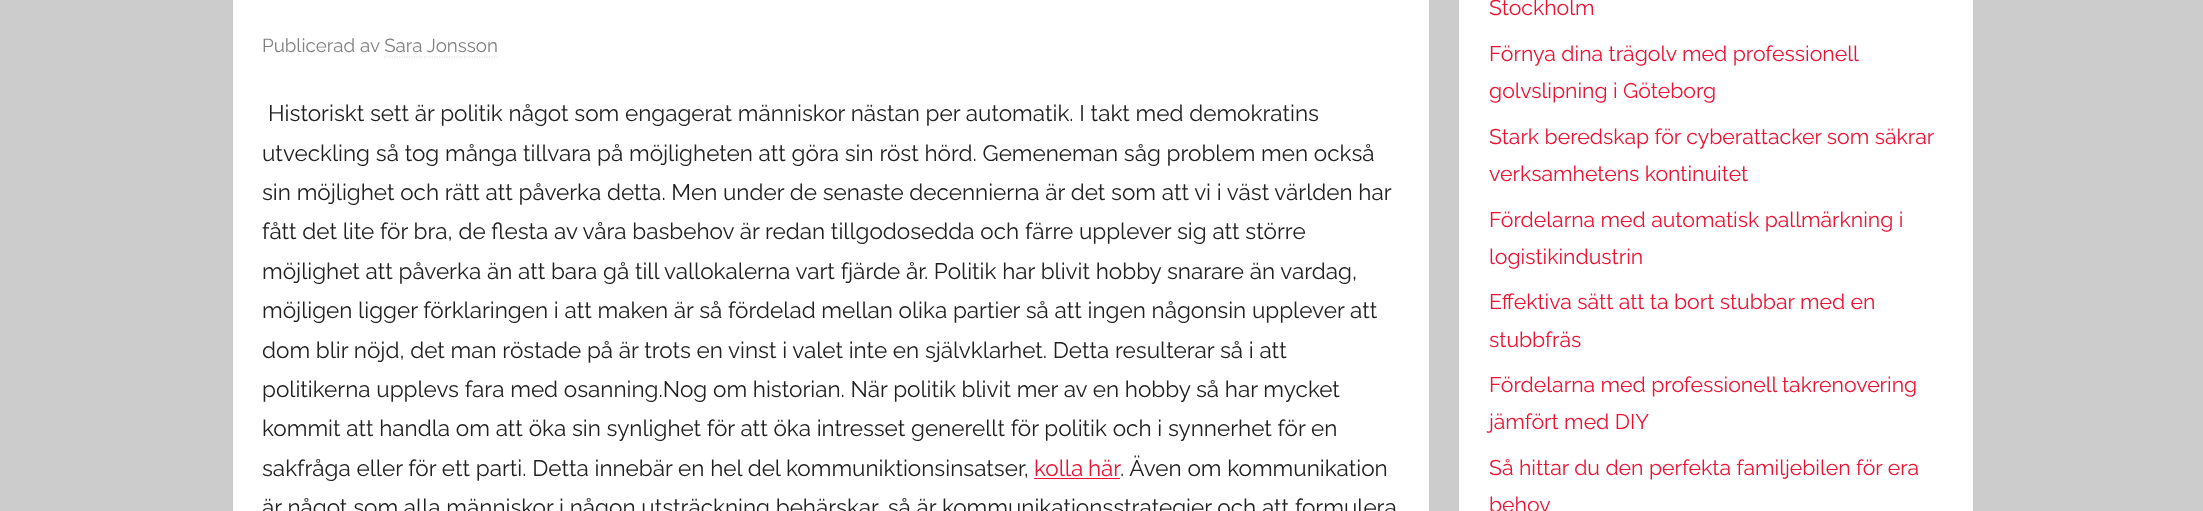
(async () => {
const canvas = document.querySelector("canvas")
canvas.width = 2203
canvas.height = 511
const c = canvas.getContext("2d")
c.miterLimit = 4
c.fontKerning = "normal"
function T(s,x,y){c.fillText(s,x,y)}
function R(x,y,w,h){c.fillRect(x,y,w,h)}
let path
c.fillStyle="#ccc"
R(0,0,2203,511)
c.fillStyle="#fff"
R(233,0,1196,511)
c.font="100 18.75px Raleway"
c.fillStyle="#808080"
T("Publicerad av Sara Jonsson",262,52)
path = new Path2D("M384 57h113.5")
c.strokeStyle="#d9d9d9"
c.lineWidth=1.2
c.setLineDash([1.25,1.25])
c.stroke(path)
c.font="100 22.5px Raleway"
c.fillStyle="#202020"
T("Historiskt sett är politik något som engagerat människor nästan per automatik. I takt med demokratins",268,121)
T("utveckling så tog många tillvara på möjligheten att göra sin röst hörd. Gemeneman såg problem men också",262,161)
T("sin möjlighet och rätt att påverka detta. Men under de senaste decennierna är det som att vi i väst världen har",262,200)
T("fått det lite för bra, de flesta av våra basbehov är redan tillgodosedda och färre upplever sig att större",262,239)
T("möjlighet att påverka än att bara gå till vallokalerna vart fjärde år. Politik har blivit hobby snarare än vardag,",262,279)
T("möjligen ligger förklaringen i att maken är så fördelad mellan olika partier så att ingen någonsin upplever att",262,318)
T("dom blir nöjd, det man röstade på är trots en vinst i valet inte en självklarhet. Detta resulterar så i att",262,358)
T("politikerna upplevs fara med osanning.Nog om historian. När politik blivit mer av en hobby så har mycket",262,397)
T("kommit att handla om att öka sin synlighet för att öka intresset generellt för politik och i synnerhet för en",262,436)
T("sakfråga eller för ett parti. Detta innebär en hel del kommuniktionsinsatser,",262,476)
c.wordSpacing="-1px"
c.fillStyle="#e13"
T("kolla här",1034,476)
R(1034,478,86,1)
c.wordSpacing="0px"
c.fillStyle="#202020"
T(". Även om kommunikation",1120,476)
T("är något som alla människor i någon utsträckning behärskar, så är kommunikationsstrategier och att formulera",262,515)
c.fillStyle="#fff"
R(1459,0,514,511)
c.font="100 21.25px Raleway"
c.fillStyle="#e13"
T("Stockholm",1489,15)
T("Förnya dina trägolv med professionell",1489,61)
T("golvslipning i Göteborg",1489,98)
T("Stark beredskap för cyberattacker som säkrar",1489,144)
T("verksamhetens kontinuitet",1489,181)
T("Fördelarna med automatisk pallmärkning i",1489,227)
T("logistikindustrin",1489,264)
T("Effektiva sätt att ta bort stubbar med en",1489,309)
T("stubbfräs",1489,347)
T("Fördelarna med professionell takrenovering",1489,392)
T("jämfört med DIY",1489,429)
T("Så hittar du den perfekta familjebilen för era",1489,475)
T("behov",1489,512)
})()
